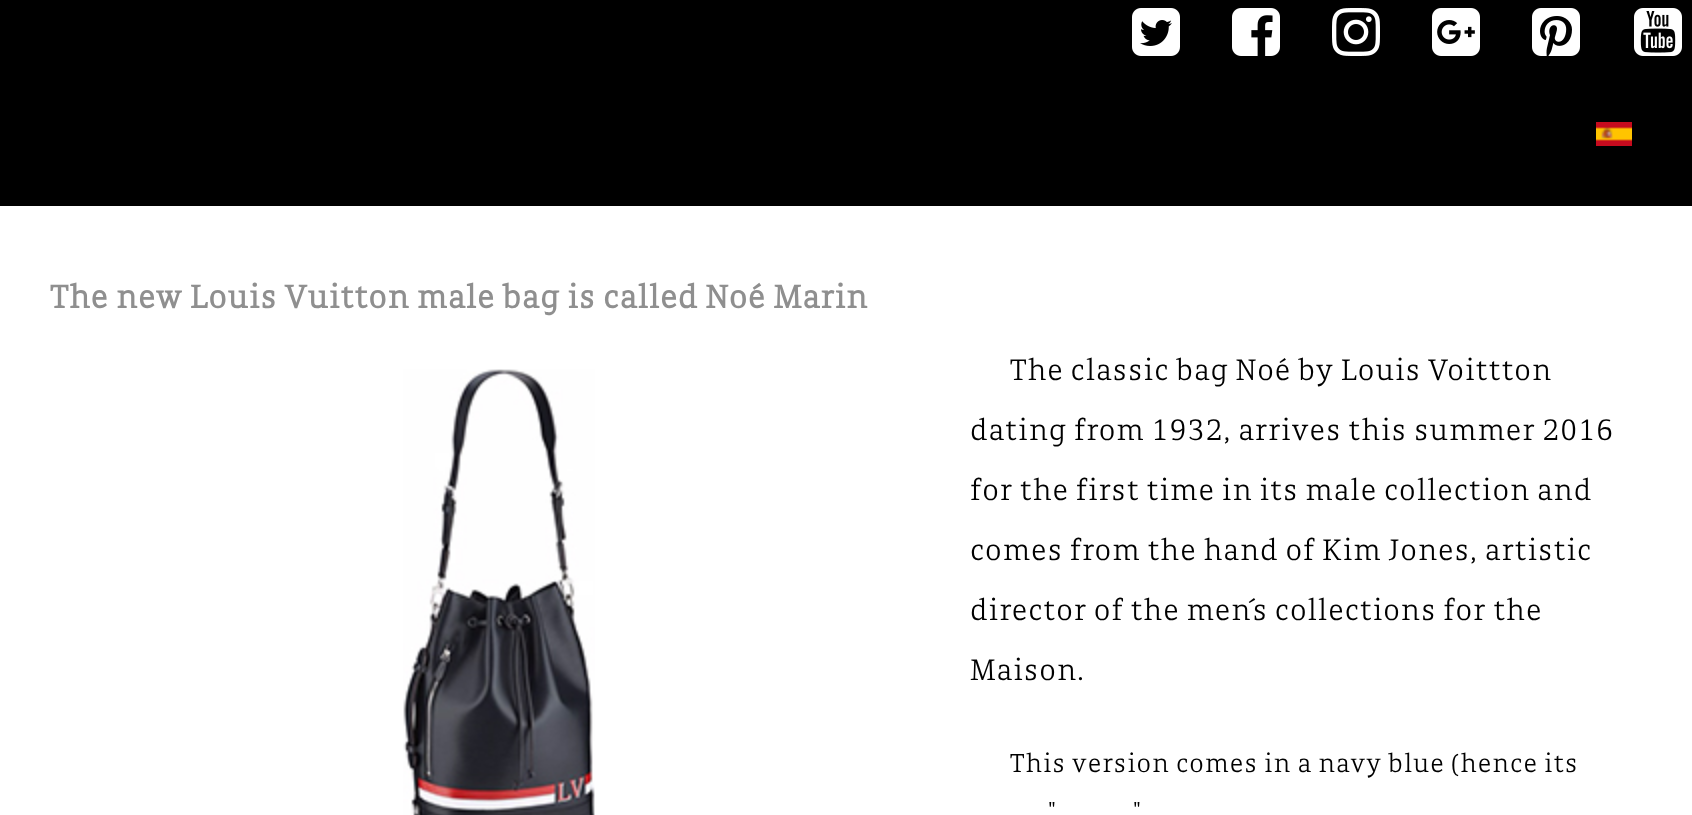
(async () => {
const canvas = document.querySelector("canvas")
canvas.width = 1692
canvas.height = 815
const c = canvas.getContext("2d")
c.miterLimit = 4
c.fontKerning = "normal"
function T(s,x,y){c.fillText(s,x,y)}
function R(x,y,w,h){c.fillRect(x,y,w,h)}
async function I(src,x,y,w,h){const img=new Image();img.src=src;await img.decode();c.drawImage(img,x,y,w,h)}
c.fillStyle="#fff"
R(0,0,1692,815)
c.fillStyle="#000"
R(0,0,1692,206)
await I("1.png",1132,8,48,48)
await I("2.png",1232,8,48,48)
await I("3.png",1332,8,48,48)
await I("4.png",1432,8,48,48)
await I("5.png",1532,8,48,48)
await I("6.png",1634,8,48,48)
await I("7.png",1596,122,36,24)
c.letterSpacing="1px"
c.font="bold 35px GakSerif"
c.fillStyle="#8f8f8f"
T("The new Louis Vuitton male bag is called Noé Marin",50,308)
await I("8.png",403,369,192,446)
c.font="300 32px GakSerif"
c.fillStyle="#000"
T("The classic bag Noé by Louis Voittton",1010,380)
T("dating from 1932, arrives this summer 2016",970,440)
T("for the first time in its male collection and",970,500)
T("comes from the hand of Kim Jones, artistic",970,560)
T("director of the men´s collections for the",970,620)
T("Maison.",970,680)
c.font="300 28px GakSerif"
T("This version comes in a navy blue (hence its",1010,772)
T("\"",1048,820)
T("\"",1133,820)
})()
